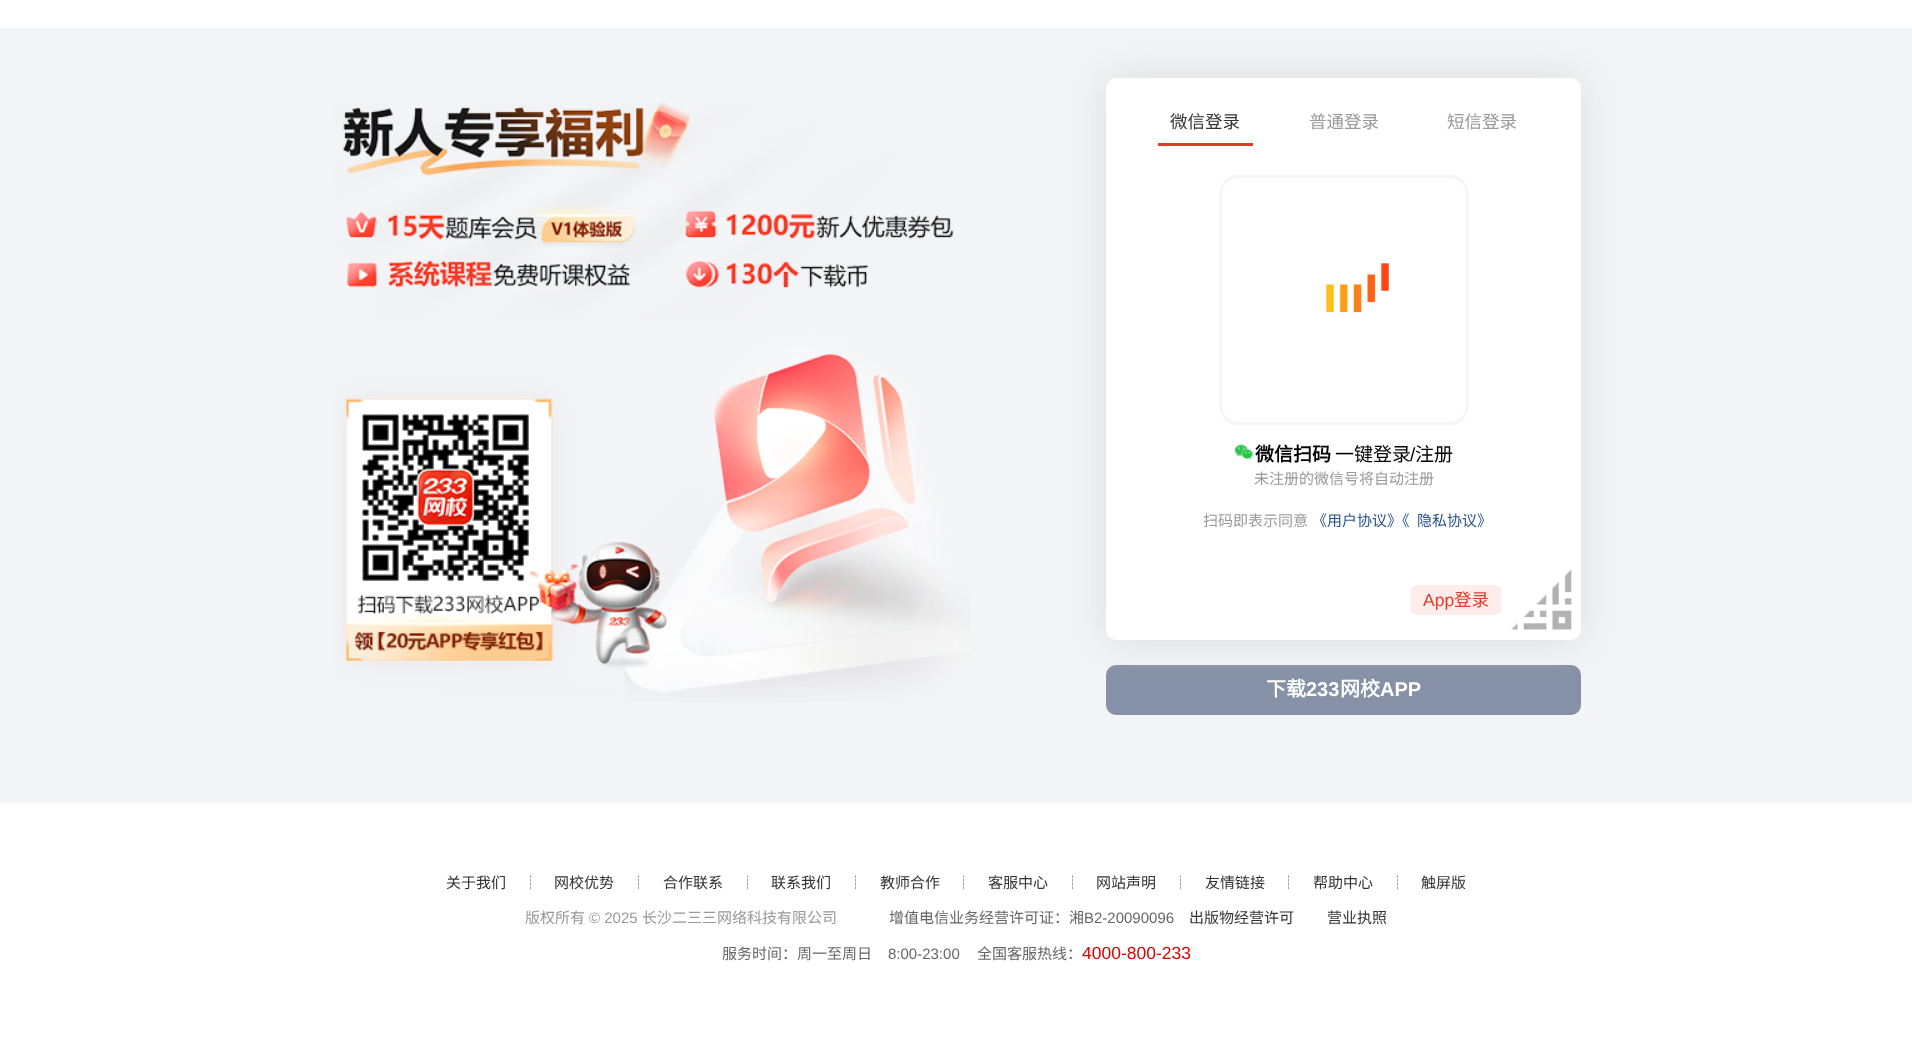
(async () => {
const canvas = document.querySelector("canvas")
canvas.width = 1912
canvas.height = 1055
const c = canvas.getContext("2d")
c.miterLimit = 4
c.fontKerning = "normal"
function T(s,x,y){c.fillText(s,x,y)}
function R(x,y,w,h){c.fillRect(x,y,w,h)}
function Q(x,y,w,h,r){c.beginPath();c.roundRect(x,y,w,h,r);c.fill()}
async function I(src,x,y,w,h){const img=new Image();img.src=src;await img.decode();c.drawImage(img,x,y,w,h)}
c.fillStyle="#fff"
R(0,0,1912,1055)
c.fillStyle="#f3f4f7"
R(0,28,1912,775)
await I("1.png",335,102,636,600)
c.fillStyle="#8690a6"
Q(1106,665,475,50,10)
c.fillStyle="#dbdbdb"
c.filter="blur(19px)"
c.beginPath()
c.roundRect(1106,78,475,562,10)
c.fill()
c.filter="none"
c.fillStyle="#fff"
Q(1106,78,475,562,10)
c.fillStyle="#e13b29"
R(1158,143,95,3)
c.font="17.5px Noto Sans CJK SC"
c.fillStyle="#333"
T("微信登录",1170,128)
c.fillStyle="#999"
T("普通登录",1309,128)
T("短信登录",1447,128)
c.beginPath()
c.roundRect(1220.5,176.5,247,247,18.5)
c.strokeStyle="#f5f5f5"
c.lineWidth=3
c.stroke()
await I("2.png",1326,263,63,50)
await I("3.png",1235,444,18,16)
c.font="bold 19px Noto Sans CJK SC"
c.fillStyle="#000"
T("微信扫码",1255,461)
c.font="19px Noto Sans CJK SC"
T("一键登录",1335,461)
c.font="19px Liberation Sans"
T("/",1410,461)
c.font="19px Noto Sans CJK SC"
T("注册",1415,461)
c.font="15px Noto Sans CJK SC"
c.fillStyle="#999"
T("未注册的微信号将自动注册",1254,484)
T("扫码即表示同意",1203,526)
c.fillStyle="#27538d"
T("《用户协议》《",1312,526)
T("隐私协议》",1417,526)
c.fillStyle="#ffedeb"
Q(1411,585,90,30,5)
c.font="17.5px Liberation Sans"
c.fillStyle="#e13b29"
T("App",1423,606)
c.font="17.5px Noto Sans CJK SC"
T("登录",1454,606)
await I("4.png",1511,569,61,61)
c.font="bold 20px Noto Sans CJK SC"
c.fillStyle="#fff"
T("下载",1266,696)
c.font="bold 20px Liberation Sans"
T("233",1306,696)
c.font="bold 20px Noto Sans CJK SC"
T("网校",1340,696)
c.font="bold 20px Liberation Sans"
T("APP",1380,696)
c.font="15px Noto Sans CJK SC"
c.fillStyle="#333"
T("关于我们",446,888)
c.fillStyle="#666"
T("┊",523,888)
c.fillStyle="#333"
T("网校优势",554,888)
c.fillStyle="#666"
T("┊",631,888)
c.fillStyle="#333"
T("合作联系",663,888)
c.fillStyle="#666"
T("┊",740,888)
c.fillStyle="#333"
T("联系我们",771,888)
c.fillStyle="#666"
T("┊",848,888)
c.fillStyle="#333"
T("教师合作",880,888)
c.fillStyle="#666"
T("┊",956,888)
c.fillStyle="#333"
T("客服中心",988,888)
c.fillStyle="#666"
T("┊",1065,888)
c.fillStyle="#333"
T("网站声明",1096,888)
c.fillStyle="#666"
T("┊",1173,888)
c.fillStyle="#333"
T("友情链接",1205,888)
c.fillStyle="#666"
T("┊",1281,888)
c.fillStyle="#333"
T("帮助中心",1313,888)
c.fillStyle="#666"
T("┊",1390,888)
c.fillStyle="#333"
T("触屏版",1421,888)
c.fillStyle="#999"
T("版权所有",525,923)
c.font="15px Liberation Sans"
T("© 2025",589,923)
c.font="15px Noto Sans CJK SC"
T("长沙二三三网络科技有限公司",642,923)
c.fillStyle="#666"
T("增值电信业务经营许可证：湘",889,923)
c.font="15px Liberation Sans"
T("B2-20090096",1084,923)
c.font="15px Noto Sans CJK SC"
c.fillStyle="#333"
T("出版物经营许可",1189,923)
T("营业执照",1327,923)
c.fillStyle="#666"
T("服务时间：周一至周日",722,959)
c.font="15px Liberation Sans"
T("8:00-23:00",888,959)
c.font="15px Noto Sans CJK SC"
T("全国客服热线：",977,959)
c.font="17.5px Liberation Sans"
c.fillStyle="#d00"
T("4000-800-233",1082,959)
})()
